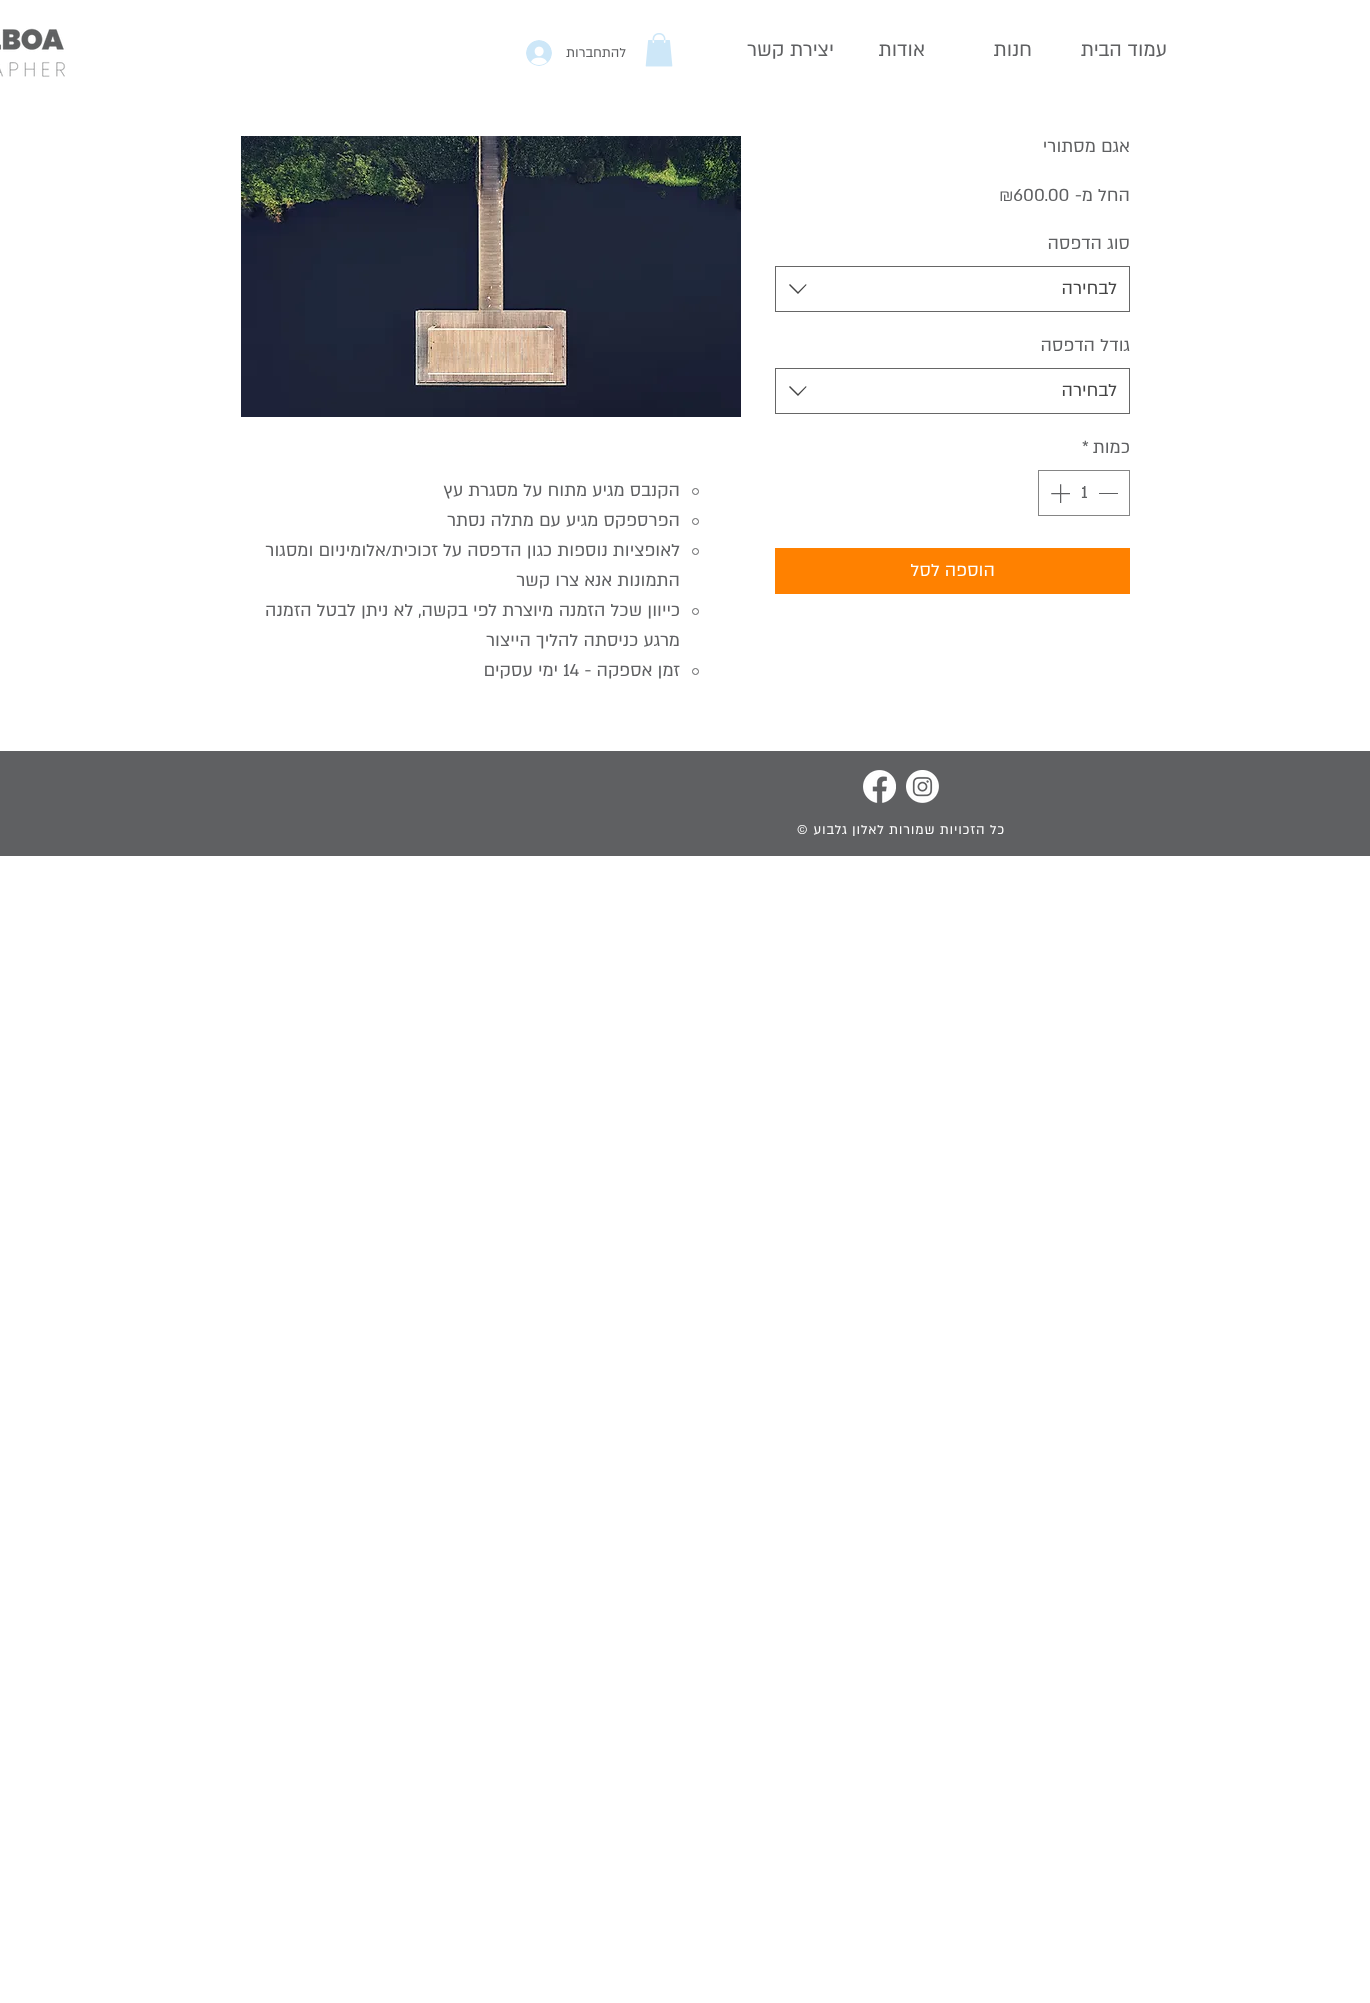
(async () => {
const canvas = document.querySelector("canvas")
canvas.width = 1370
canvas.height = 2003
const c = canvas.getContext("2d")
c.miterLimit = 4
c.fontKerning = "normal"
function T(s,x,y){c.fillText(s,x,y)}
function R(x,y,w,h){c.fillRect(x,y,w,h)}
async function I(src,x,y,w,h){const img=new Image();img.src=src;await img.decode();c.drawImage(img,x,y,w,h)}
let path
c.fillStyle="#fff"
R(0,0,1370,2003)
c.direction="rtl"
c.font="22px 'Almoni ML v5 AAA'"
c.fillStyle="#5f6062"
T("עמוד הבית",1167,56)
T("חנות",1032,56)
T("אודות",925,56)
T("יצירת קשר",834,56)
await I("1.png",645,33,28,34)
c.font="15px 'Almoni ML v5 AAA'"
T("להתחברות",626,57)
await I("2.png",526,40,26,26)
await I("3.png",0,28,66,49)
c.font="20px 'Almoni ML v5 AAA'"
T("אגם מסתורי",1130,152)
T("החל מ-",1130,201)
c.direction="ltr"
T("₪600.00",999,201)
c.direction="rtl"
T("סוג הדפסה",1130,249)
c.strokeStyle="#666"
c.strokeRect(775.5,266.5,354,45)
c.fillStyle="#444"
T("לבחירה",1117,294)
path = new Path2D("M806 284l.5 1l-8.5 9l-9-9l1-1l8 8z")
c.fill(path,"evenodd")
c.fillStyle="#5f6062"
T("גודל הדפסה",1130,351)
c.strokeRect(775.5,368.5,354,45)
c.fillStyle="#444"
T("לבחירה",1117,396)
path = new Path2D("M806 386l.5 1l-8.5 9l-9-9l1-1l8 8z")
c.fill(path,"evenodd")
c.fillStyle="#5f6062"
T("כמות",1130,453)
c.direction="ltr"
T("*",1082,453)
c.strokeStyle="#858585"
c.strokeRect(1038.5,470.5,91,45)
R(1099,493,19,1)
T("1",1081,498)
await I("4.png",1051,484,19,19)
c.fillStyle="#ff8100"
R(775,548,355,46)
c.direction="rtl"
c.fillStyle="#fff"
T("הוספה לסל",995,576)
await I("5.png",241,136,500,281)
c.beginPath()
c.arc(695.5,491.5,3,0,7)
c.strokeStyle="#5f6062"
c.stroke()
c.fillStyle="#5f6062"
T("הקנבס מגיע מתוח על מסגרת עץ",680,496)
c.beginPath()
c.arc(695.5,521.5,3,0,7)
c.stroke()
T("הפרספקס מגיע עם מתלה נסתר",680,526)
c.beginPath()
c.arc(695.5,551.5,3,0,7)
c.stroke()
T("לאופציות נוספות כגון הדפסה על זכוכית/אלומיניום ומסגור",680,556)
T("התמונות אנא צרו קשר",680,586)
c.beginPath()
c.arc(695.5,611.5,3,0,7)
c.stroke()
T("כייוון שכל הזמנה מיוצרת לפי בקשה, לא ניתן לבטל הזמנה",680,616)
T("מרגע כניסתה להליך הייצור",680,646)
c.beginPath()
c.arc(695.5,671.5,3,0,7)
c.stroke()
T("זמן אספקה -",680,676)
c.direction="ltr"
T("14",563,676)
c.direction="rtl"
T("ימי עסקים",558,676)
R(0,751,1370,105)
await I("6.png",906,770,33,33)
await I("7.png",863,770,33,33)
c.letterSpacing="0.75px"
c.font="15px 'Almoni ML v5 AAA'"
c.fillStyle="#fff"
T("כל הזכויות שמורות לאלון גלבוע",1005,834)
c.direction="ltr"
T("©",797,834)
})()
